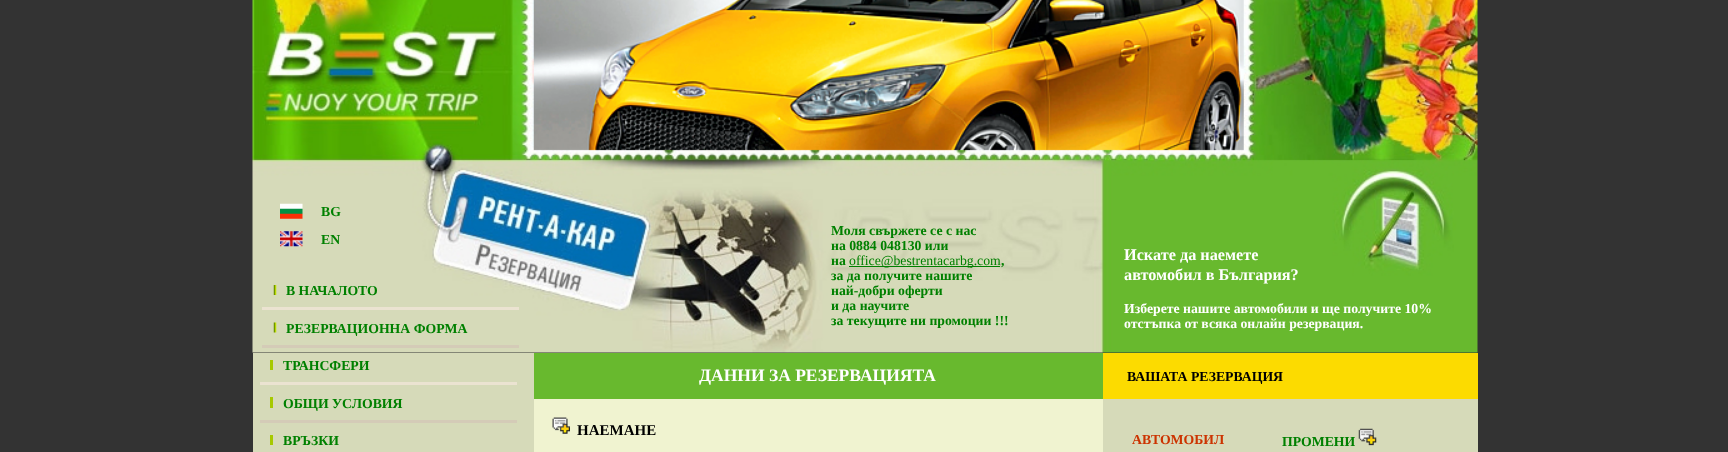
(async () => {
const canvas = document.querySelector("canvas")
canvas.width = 1728
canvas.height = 452
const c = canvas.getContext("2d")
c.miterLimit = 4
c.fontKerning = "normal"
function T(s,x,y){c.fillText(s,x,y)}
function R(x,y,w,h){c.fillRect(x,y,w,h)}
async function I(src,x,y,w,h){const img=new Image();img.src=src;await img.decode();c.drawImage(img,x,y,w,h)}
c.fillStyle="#333"
R(0,0,1728,452)
await I("1.png",252,0,1226,353)
await I("2.png",280,203,23,16)
c.font="bold 13.75px Liberation Serif"
c.fillStyle="#008000"
T("BG",321,216)
await I("3.png",280,231,23,16)
T("EN",321,244)
T("Моля свържете се с нас",831,235)
T("на 0884 048130 или",831,250)
T("на",831,265)
R(849,266,151,1)
c.font="13.75px Liberation Serif"
T("office@bestrentacarbg.com",849,265)
c.font="bold 13.75px Liberation Serif"
T(",",1001,265)
T("за да получите нашите",831,280)
T("най-добри оферти",831,295)
T("и да научите",831,310)
T("за текущите ни промоции !!!",831,325)
c.font="bold 16.25px Liberation Serif"
c.fillStyle="#fff"
T("Искате да наемете",1124,260)
T("автомобил в България?",1124,280)
c.font="bold 13.75px Liberation Serif"
T("Изберете нашите автомобили и ще получите 10%",1124,313)
T("отстъпка от всяка онлайн резервация.",1124,328)
await I("4.png",273,285,4,10)
c.fillStyle="#008000"
T("В НАЧАЛОТО",286,295)
c.fillStyle="#ebe3d1"
R(262,307,257,3)
await I("5.png",273,322,4,11)
c.fillStyle="#008000"
T("РЕЗЕРВАЦИОННА ФОРМА",286,333)
c.fillStyle="#d4cbb7"
R(262,345,257,3)
c.fillStyle="#d6dab9"
R(253,353,281,99)
c.fillStyle="#a6c900"
R(270,360,3,10)
c.fillStyle="#008000"
T("ТРАНСФЕРИ",283,370)
c.fillStyle="#ebe3d1"
R(260,382,257,3)
c.fillStyle="#a6c900"
R(270,397,3,11)
c.fillStyle="#008000"
T("ОБЩИ УСЛОВИЯ",283,408)
c.fillStyle="#d4cbb7"
R(260,420,257,3)
c.fillStyle="#a6c900"
R(270,435,3,10)
c.fillStyle="#008000"
T("ВРЪЗКИ",283,445)
c.fillStyle="#f0f3d0"
R(534,399,569,53)
c.fillStyle="#68b92e"
R(534,353,569,46)
c.font="bold 17.5px Liberation Serif"
c.fillStyle="#fff"
T("ДАННИ ЗА РЕЗЕРВАЦИЯТА",699,381)
await I("6.png",552,417,18,17)
c.font="bold 15px Liberation Serif"
c.fillStyle="#000"
T("НАЕМАНЕ",577,435)
c.fillStyle="#d6dab9"
R(1103,399,375,53)
c.fillStyle="#fcdb00"
R(1103,353,375,46)
c.font="bold 13.75px Liberation Serif"
c.fillStyle="#000"
T("ВАШАТА РЕЗЕРВАЦИЯ",1127,381)
c.fillStyle="#c30"
T("АВТОМОБИЛ",1132,444)
c.fillStyle="#008000"
T("ПРОМЕНИ",1282,446)
await I("7.png",1358,428,19,18)
})()
